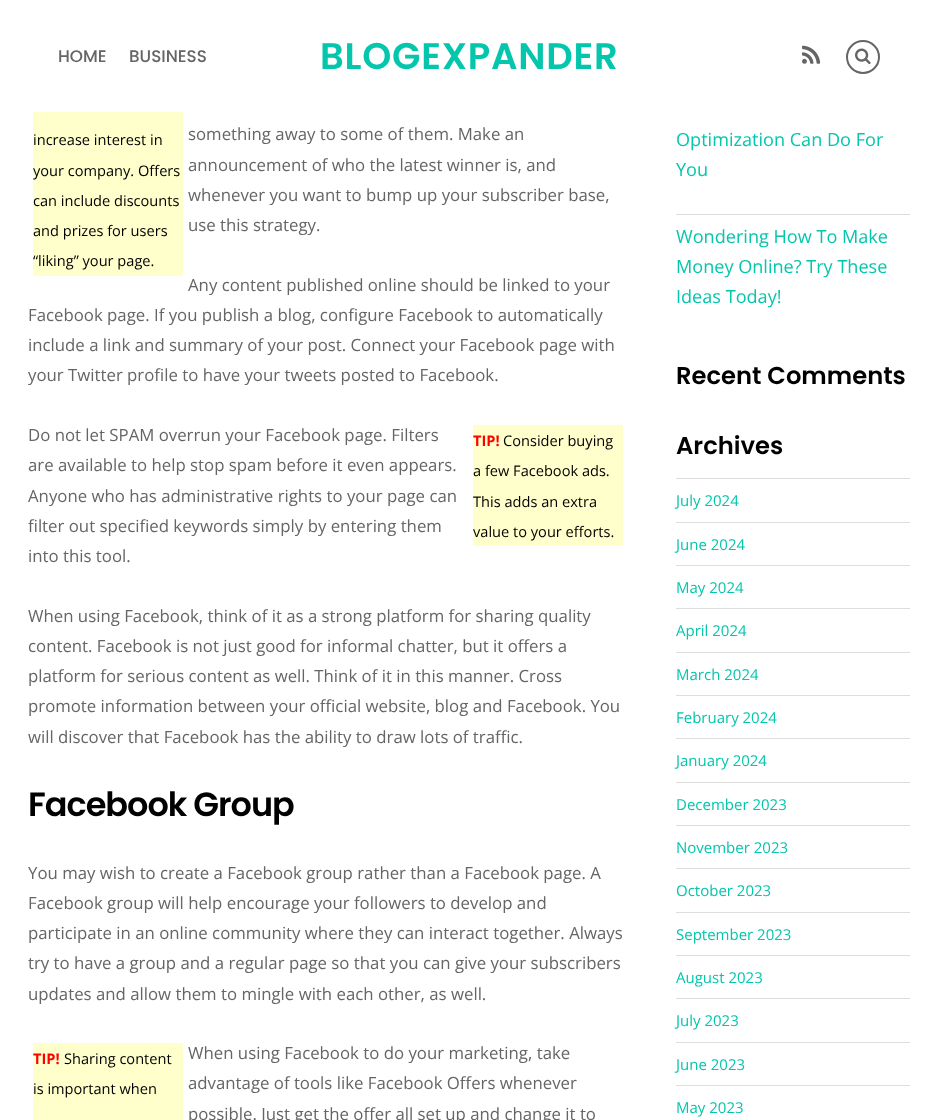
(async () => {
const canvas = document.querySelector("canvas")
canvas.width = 938
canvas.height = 1120
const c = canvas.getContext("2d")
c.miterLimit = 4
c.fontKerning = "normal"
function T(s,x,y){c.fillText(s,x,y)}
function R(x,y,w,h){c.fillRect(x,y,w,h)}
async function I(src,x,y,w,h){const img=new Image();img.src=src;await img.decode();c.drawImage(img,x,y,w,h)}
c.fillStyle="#fff"
R(0,0,938,1120)
c.font="500 16.8px Poppins"
c.fillStyle="#656565"
T("HOME",58,62)
T("BUSINESS",129,62)
await I("1.png",802,45,19,19)
c.beginPath()
c.arc(863,57,16,0,7)
c.strokeStyle="#656565"
c.lineWidth=2
c.stroke()
await I("2.png",855,48,16,17)
c.letterSpacing="0.75px"
c.font="600 37px Poppins"
c.fillStyle="#03c6ad"
T("BLOGEXPANDER",320,69)
c.fillStyle="#ffc"
R(33,112,150,164)
c.letterSpacing="0px"
c.font="14.6px Open Sans"
c.fillStyle="#000"
T("increase interest in",33,145)
T("your company. Offers",33,176)
T("can include discounts",33,206)
T("and prizes for users",33,236)
T("“liking” your page.",33,266)
c.font="16.8px Open Sans"
c.fillStyle="#656565"
T("something away to some of them. Make an",188,140)
T("announcement of who the latest winner is, and",188,171)
T("whenever you want to bump up your subscriber base,",188,201)
T("use this strategy.",188,231)
T("Any content published online should be linked to your",188,291)
T("Facebook page. If you publish a blog, configure Facebook to automatically",28,321)
T("include a link and summary of your post. Connect your Facebook page with",28,351)
T("your Twitter profile to have your tweets posted to Facebook.",28,381)
T("Do not let SPAM overrun your Facebook page. Filters",28,441)
T("are available to help stop spam before it even appears.",28,471)
T("Anyone who has administrative rights to your page can",28,502)
T("filter out specified keywords simply by entering them",28,532)
T("into this tool.",28,562)
c.fillStyle="#ffc"
R(473,425,150,121)
c.font="bold 14.6px Open Sans"
c.fillStyle="#f00"
T("TIP!",473,446)
c.font="14.6px Open Sans"
c.fillStyle="#000"
T("Consider buying",503,446)
T("a few Facebook ads.",473,476)
T("This adds an extra",473,507)
T("value to your efforts.",473,537)
c.font="16.8px Open Sans"
c.fillStyle="#656565"
T("When using Facebook, think of it as a strong platform for sharing quality",28,622)
T("content. Facebook is not just good for informal chatter, but it offers a",28,652)
T("platform for serious content as well. Think of it in this manner. Cross",28,682)
T("promote information between your official website, blog and Facebook. You",28,712)
T("will discover that Facebook has the ability to draw lots of traffic.",28,743)
c.letterSpacing="-1px"
c.font="600 33.5px Poppins"
c.fillStyle="#000"
T("Facebook Group",28,816)
c.letterSpacing="0px"
c.font="16.8px Open Sans"
c.fillStyle="#656565"
T("You may wish to create a Facebook group rather than a Facebook page. A",28,879)
T("Facebook group will help encourage your followers to develop and",28,909)
T("participate in an online community where they can interact together. Always",28,939)
T("try to have a group and a regular page so that you can give your subscribers",28,969)
T("updates and allow them to mingle with each other, as well.",28,1000)
c.fillStyle="#ffc"
R(33,1043,150,77)
c.font="bold 14.6px Open Sans"
c.fillStyle="#f00"
T("TIP!",33,1064)
c.font="14.6px Open Sans"
c.fillStyle="#000"
T("Sharing content",64,1064)
T("is important when",33,1094)
c.font="16.8px Open Sans"
c.fillStyle="#656565"
T("When using Facebook to do your marketing, take",188,1059)
T("advantage of tools like Facebook Offers whenever",188,1089)
T("possible. Just get the offer all set up and change it to",188,1120)
c.font="18.1px Open Sans"
c.fillStyle="#03c6ad"
T("Optimization Can Do For",676,146)
T("You",676,176)
c.fillStyle="#ddd"
R(676,214,234,1)
c.fillStyle="#03c6ad"
T("Wondering How To Make",676,243)
T("Money Online? Try These",676,273)
T("Ideas Today!",676,303)
c.font="600 24.25px Poppins"
c.fillStyle="#000"
T("Recent Comments",676,384)
T("Archives",676,454)
c.fillStyle="#ddd"
R(676,478,234,1)
c.font="15px Open Sans"
c.fillStyle="#03c6ad"
T("July 2024",676,506)
c.fillStyle="#ddd"
R(676,522,234,1)
c.fillStyle="#03c6ad"
T("June 2024",676,550)
c.fillStyle="#ddd"
R(676,565,234,1)
c.fillStyle="#03c6ad"
T("May 2024",676,593)
c.fillStyle="#ddd"
R(676,608,234,1)
c.fillStyle="#03c6ad"
T("April 2024",676,636)
c.fillStyle="#ddd"
R(676,652,234,1)
c.fillStyle="#03c6ad"
T("March 2024",676,680)
c.fillStyle="#ddd"
R(676,695,234,1)
c.fillStyle="#03c6ad"
T("February 2024",676,723)
c.fillStyle="#ddd"
R(676,738,234,1)
c.fillStyle="#03c6ad"
T("January 2024",676,766)
c.fillStyle="#ddd"
R(676,782,234,1)
c.fillStyle="#03c6ad"
T("December 2023",676,810)
c.fillStyle="#ddd"
R(676,825,234,1)
c.fillStyle="#03c6ad"
T("November 2023",676,853)
c.fillStyle="#ddd"
R(676,868,234,1)
c.fillStyle="#03c6ad"
T("October 2023",676,896)
c.fillStyle="#ddd"
R(676,912,234,1)
c.fillStyle="#03c6ad"
T("September 2023",676,940)
c.fillStyle="#ddd"
R(676,955,234,1)
c.fillStyle="#03c6ad"
T("August 2023",676,983)
c.fillStyle="#ddd"
R(676,998,234,1)
c.fillStyle="#03c6ad"
T("July 2023",676,1026)
c.fillStyle="#ddd"
R(676,1042,234,1)
c.fillStyle="#03c6ad"
T("June 2023",676,1070)
c.fillStyle="#ddd"
R(676,1085,234,1)
c.fillStyle="#03c6ad"
T("May 2023",676,1113)
})()
